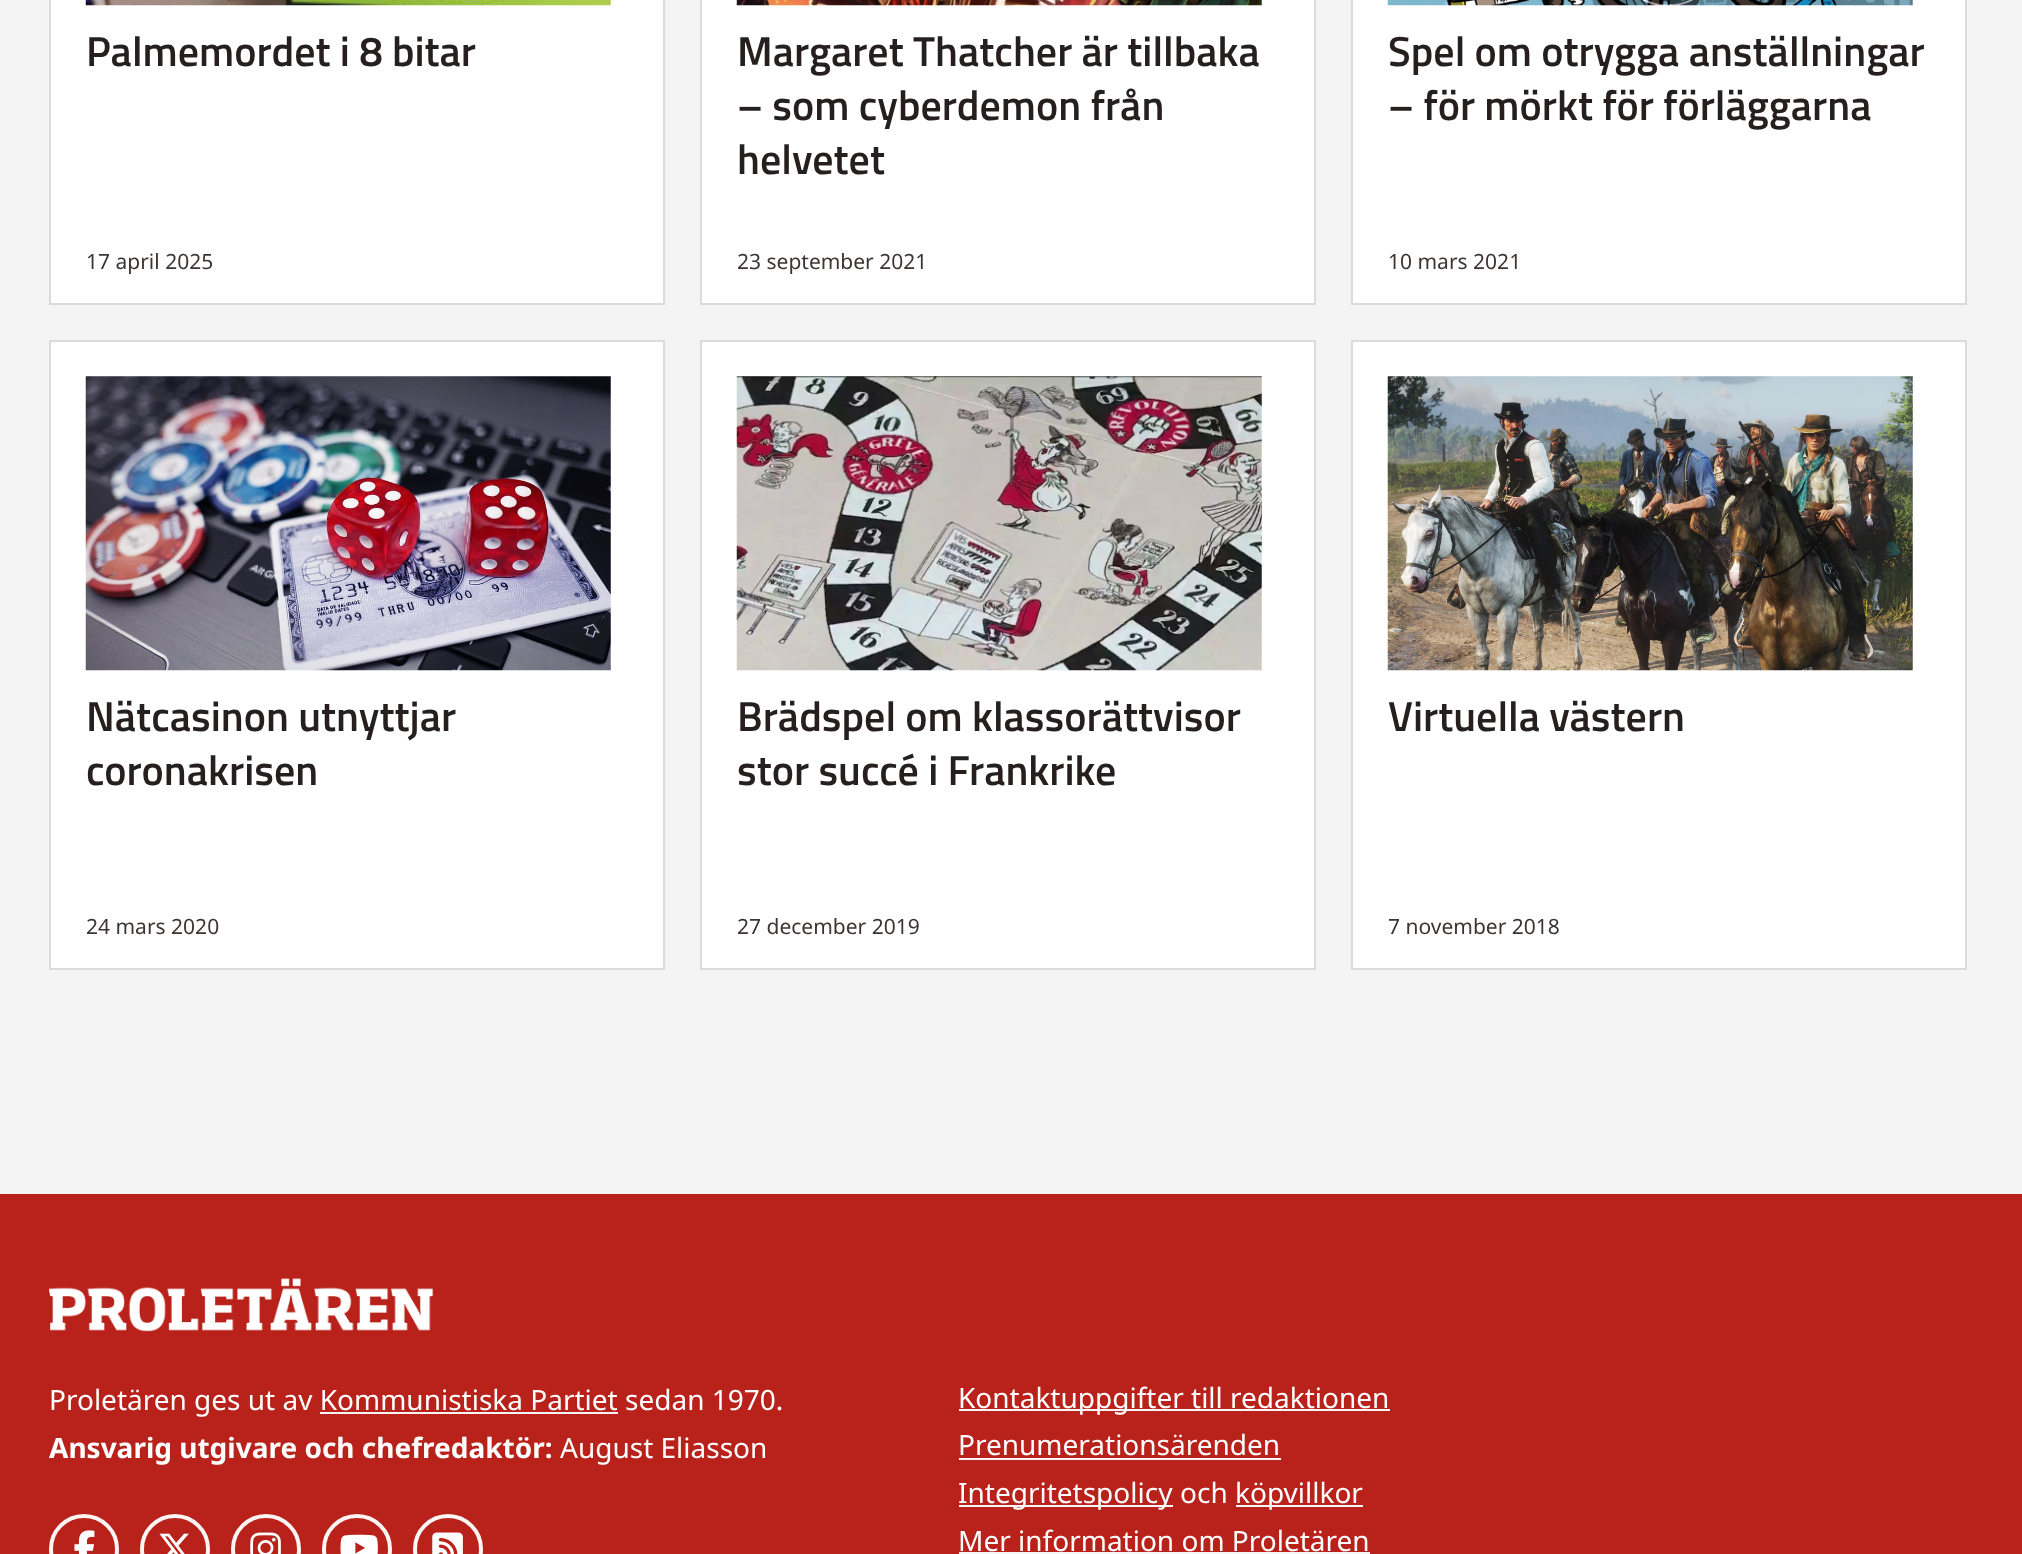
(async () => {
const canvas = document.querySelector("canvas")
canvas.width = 2022
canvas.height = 1554
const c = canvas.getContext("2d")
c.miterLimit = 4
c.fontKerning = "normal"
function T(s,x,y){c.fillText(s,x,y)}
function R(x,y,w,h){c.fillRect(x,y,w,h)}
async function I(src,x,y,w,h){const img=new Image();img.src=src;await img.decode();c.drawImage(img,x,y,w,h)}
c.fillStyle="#f4f4f4"
R(0,0,2022,1554)
c.fillStyle="#fff"
c.beginPath()
c.rect(50,-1,614,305)
c.fill()
c.strokeStyle="#dbdbdb"
c.lineWidth=2
c.stroke()
await I("1.png",85,0,526,6)
c.font="600 42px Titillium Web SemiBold"
c.fillStyle="#251f1f"
T("Palmemordet i 8 bitar",86,66)
c.font="21px Noto Sans"
c.fillStyle="#3e3434"
T("17 april 2025",86,269)
c.fillStyle="#fff"
c.beginPath()
c.rect(701,-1,614,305)
c.fill()
c.stroke()
await I("2.png",736,0,526,6)
c.font="600 42px Titillium Web SemiBold"
c.fillStyle="#251f1f"
T("Margaret Thatcher är tillbaka",737,66)
T("– som cyberdemon från",737,120)
T("helvetet",737,174)
c.font="21px Noto Sans"
c.fillStyle="#3e3434"
T("23 september 2021",737,269)
c.fillStyle="#fff"
c.beginPath()
c.rect(1352,-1,614,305)
c.fill()
c.stroke()
await I("3.png",1387,0,526,6)
c.font="600 42px Titillium Web SemiBold"
c.fillStyle="#251f1f"
T("Spel om otrygga anställningar",1388,66)
T("– för mörkt för förläggarna",1388,120)
c.font="21px Noto Sans"
c.fillStyle="#3e3434"
T("10 mars 2021",1388,269)
c.fillStyle="#fff"
c.beginPath()
c.rect(50,341,614,628)
c.fill()
c.stroke()
await I("4.png",85,376,526,295)
c.font="600 42px Titillium Web SemiBold"
c.fillStyle="#251f1f"
T("Nätcasinon utnyttjar",86,731)
T("coronakrisen",86,785)
c.font="21px Noto Sans"
c.fillStyle="#3e3434"
T("24 mars 2020",86,934)
c.fillStyle="#fff"
c.beginPath()
c.rect(701,341,614,628)
c.fill()
c.stroke()
await I("5.png",736,376,526,295)
c.font="600 42px Titillium Web SemiBold"
c.fillStyle="#251f1f"
T("Brädspel om klassorättvisor",737,731)
T("stor succé i Frankrike",737,785)
c.font="21px Noto Sans"
c.fillStyle="#3e3434"
T("27 december 2019",737,934)
c.fillStyle="#fff"
c.beginPath()
c.rect(1352,341,614,628)
c.fill()
c.stroke()
await I("6.png",1387,376,526,295)
c.font="600 42px Titillium Web SemiBold"
c.fillStyle="#251f1f"
T("Virtuella västern",1388,731)
c.font="21px Noto Sans"
c.fillStyle="#3e3434"
T("7 november 2018",1388,934)
c.fillStyle="#b8221b"
R(0,1194,2022,360)
await I("7.png",49,1278,385,54)
c.font="28px Noto Sans"
c.fillStyle="#fff"
T("Proletären ges ut av Kommunistiska Partiet",49,1410)
T("sedan 1970.",625,1410)
c.fillStyle="#f5f5f5"
R(320,1412,298,2)
c.font="bold 28px Noto Sans"
c.fillStyle="#fff"
T("Ansvarig utgivare och chefredaktör:",49,1458)
c.font="28px Noto Sans"
T("August Eliasson",560,1458)
c.beginPath()
c.arc(84,1549,33,0,7)
c.strokeStyle="#fdf4f4"
c.lineWidth=4
c.stroke()
await I("8.png",74,1530,21,24)
c.beginPath()
c.arc(175,1549,33,0,7)
c.stroke()
await I("9.png",159,1533,30,21)
c.beginPath()
c.arc(266,1549,33,0,7)
c.stroke()
await I("10.png",250,1532,31,22)
c.beginPath()
c.arc(357,1549,33,0,7)
c.stroke()
await I("11.png",340,1534,38,20)
c.beginPath()
c.arc(448,1549,33,0,7)
c.stroke()
await I("12.png",432,1532,31,22)
c.fillStyle="#f5f5f5"
R(959,1409,431,2)
c.fillStyle="#fff"
T("Kontaktuppgifter till redaktionen",958,1408)
T("Prenumerationsärenden",958,1455)
c.fillStyle="#f5f5f5"
R(959,1458,322,2)
R(959,1505,214,2)
c.fillStyle="#fff"
T("Integritetspolicy",958,1503)
T("och",1180,1503)
c.fillStyle="#f5f5f5"
R(1236,1505,127,2)
c.fillStyle="#fff"
T("köpvillkor",1235,1503)
T("Mer information om Proletären",958,1551)
c.fillStyle="#f5f5f5"
R(959,1552,411,2)
})()
